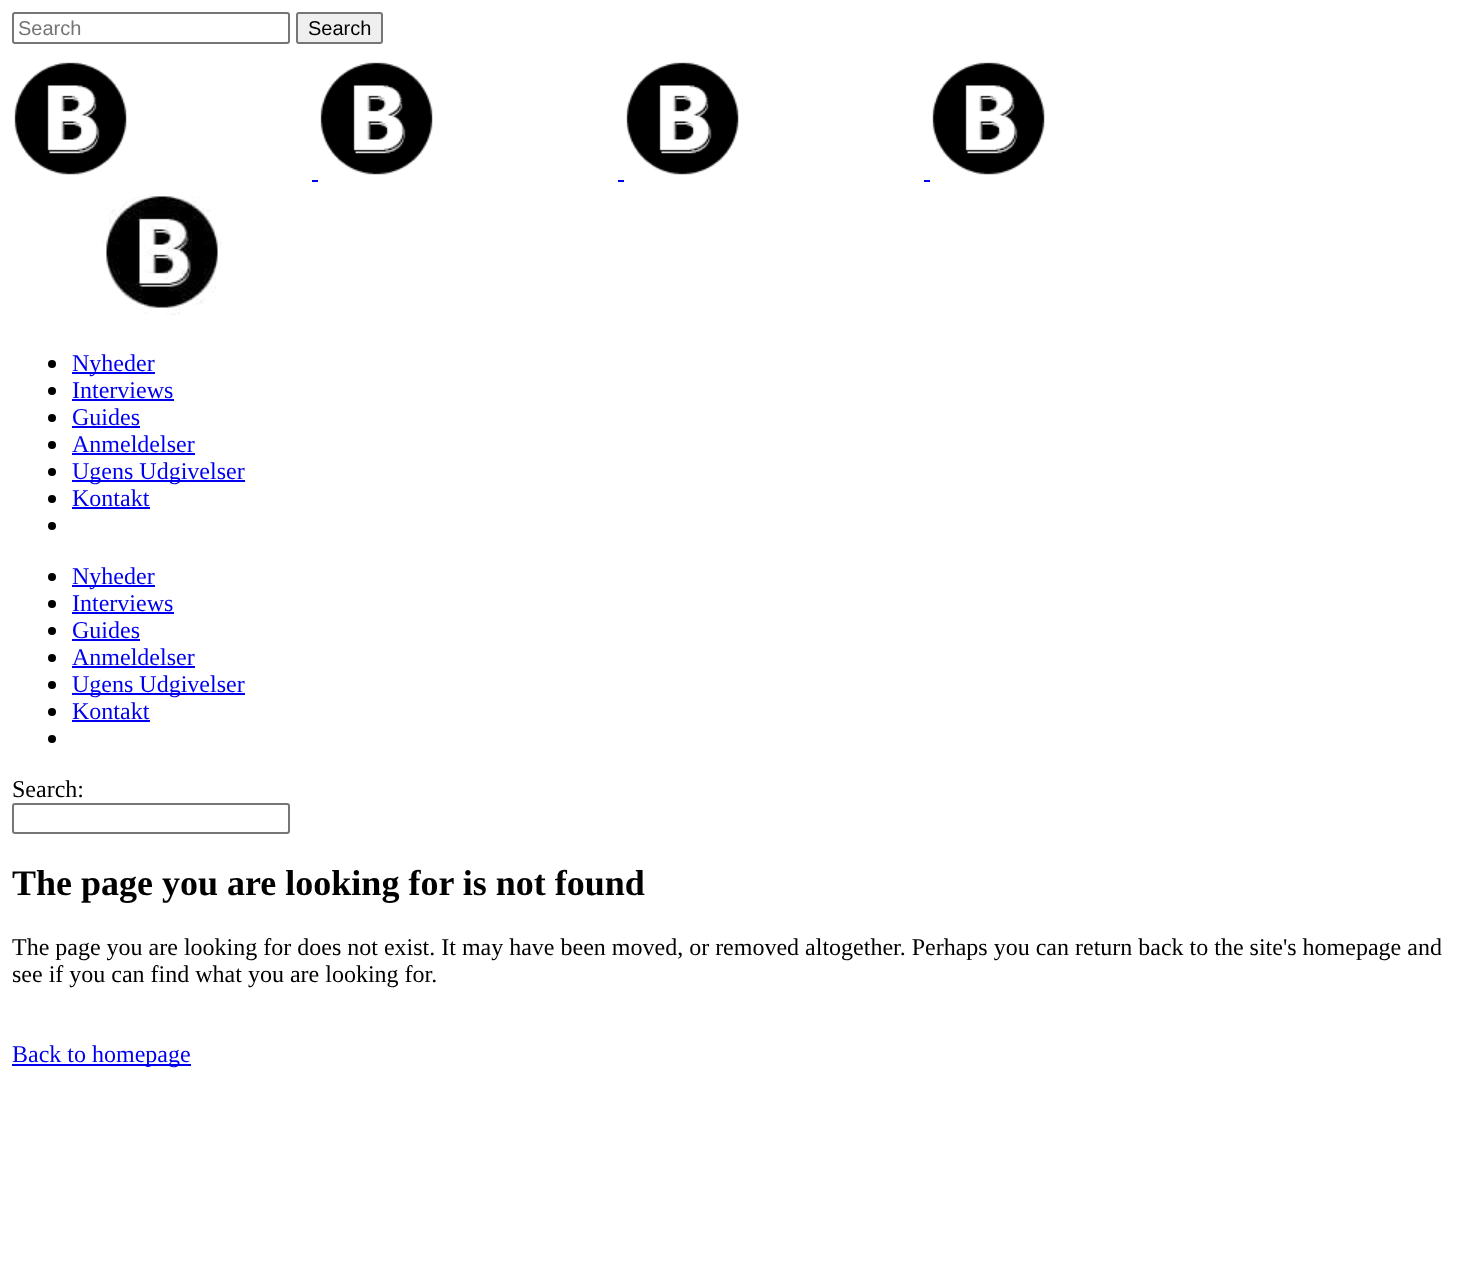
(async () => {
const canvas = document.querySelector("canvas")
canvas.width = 1465
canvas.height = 1264
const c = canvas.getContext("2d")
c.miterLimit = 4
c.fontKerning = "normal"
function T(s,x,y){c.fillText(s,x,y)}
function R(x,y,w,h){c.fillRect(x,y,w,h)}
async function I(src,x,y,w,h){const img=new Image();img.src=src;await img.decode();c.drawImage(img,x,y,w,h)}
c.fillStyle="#fff"
R(0,0,1465,1264)
c.beginPath()
c.roundRect(13,13,276,30,2)
c.strokeStyle="#767676"
c.lineWidth=2
c.stroke()
c.font="20px Liberation Sans"
c.fillStyle="#757575"
T("Search",18,35)
c.fillStyle="#efefef"
c.beginPath()
c.roundRect(297,13,85,30,2)
c.fill()
c.stroke()
c.fillStyle="#000"
T("Search",308,35)
await I("1.png",14,62,113,113)
await I("2.png",320,62,113,113)
await I("1.png",626,62,113,113)
await I("1.png",932,62,113,113)
c.fillStyle="#00e"
R(312,180,6,2)
R(618,180,6,2)
R(924,180,6,2)
await I("3.png",102,196,120,120)
c.fillStyle="#000"
c.beginPath()
c.arc(52,364,4,0,7)
c.fill()
c.fillStyle="#00e"
R(72,372,83,2)
c.font="24px Liberation Serif"
T("Nyheder",72,371)
c.fillStyle="#000"
c.beginPath()
c.arc(52,391,4,0,7)
c.fill()
c.fillStyle="#00e"
T("Interviews",72,398)
R(72,399,102,2)
c.fillStyle="#000"
c.beginPath()
c.arc(52,418,4,0,7)
c.fill()
c.fillStyle="#00e"
T("Guides",72,425)
R(72,426,68,2)
c.fillStyle="#000"
c.beginPath()
c.arc(52,445,4,0,7)
c.fill()
c.fillStyle="#00e"
T("Anmeldelser",72,452)
R(72,453,123,2)
c.fillStyle="#000"
c.beginPath()
c.arc(52,472,4,0,7)
c.fill()
c.fillStyle="#00e"
R(72,480,173,2)
T("Ugens Udgivelser",72,479)
c.fillStyle="#000"
c.beginPath()
c.arc(52,499,4,0,7)
c.fill()
c.fillStyle="#00e"
T("Kontakt",72,506)
R(72,507,78,2)
c.fillStyle="#000"
c.beginPath()
c.arc(52,526,4,0,7)
c.fill()
c.beginPath()
c.arc(52,577,4,0,7)
c.fill()
c.fillStyle="#00e"
R(72,585,83,2)
T("Nyheder",72,584)
c.fillStyle="#000"
c.beginPath()
c.arc(52,604,4,0,7)
c.fill()
c.fillStyle="#00e"
T("Interviews",72,611)
R(72,612,102,2)
c.fillStyle="#000"
c.beginPath()
c.arc(52,631,4,0,7)
c.fill()
c.fillStyle="#00e"
T("Guides",72,638)
R(72,639,68,2)
c.fillStyle="#000"
c.beginPath()
c.arc(52,658,4,0,7)
c.fill()
c.fillStyle="#00e"
T("Anmeldelser",72,665)
R(72,666,123,2)
c.fillStyle="#000"
c.beginPath()
c.arc(52,685,4,0,7)
c.fill()
c.fillStyle="#00e"
R(72,693,173,2)
T("Ugens Udgivelser",72,692)
c.fillStyle="#000"
c.beginPath()
c.arc(52,712,4,0,7)
c.fill()
c.fillStyle="#00e"
T("Kontakt",72,719)
R(72,720,78,2)
c.fillStyle="#000"
c.beginPath()
c.arc(52,739,4,0,7)
c.fill()
T("Search:",12,797)
c.beginPath()
c.roundRect(13,804,276,29,2)
c.stroke()
c.font="bold 36px Liberation Serif"
T("The page you are looking for is not found",12,895)
c.font="24px Liberation Serif"
T("The page you are looking for does not exist. It may have been moved, or removed altogether. Perhaps you can return back to the site's homepage and",12,955)
T("see if you can find what you are looking for.",12,982)
c.fillStyle="#00e"
R(12,1064,179,2)
T("Back to homepage",12,1062)
})()
